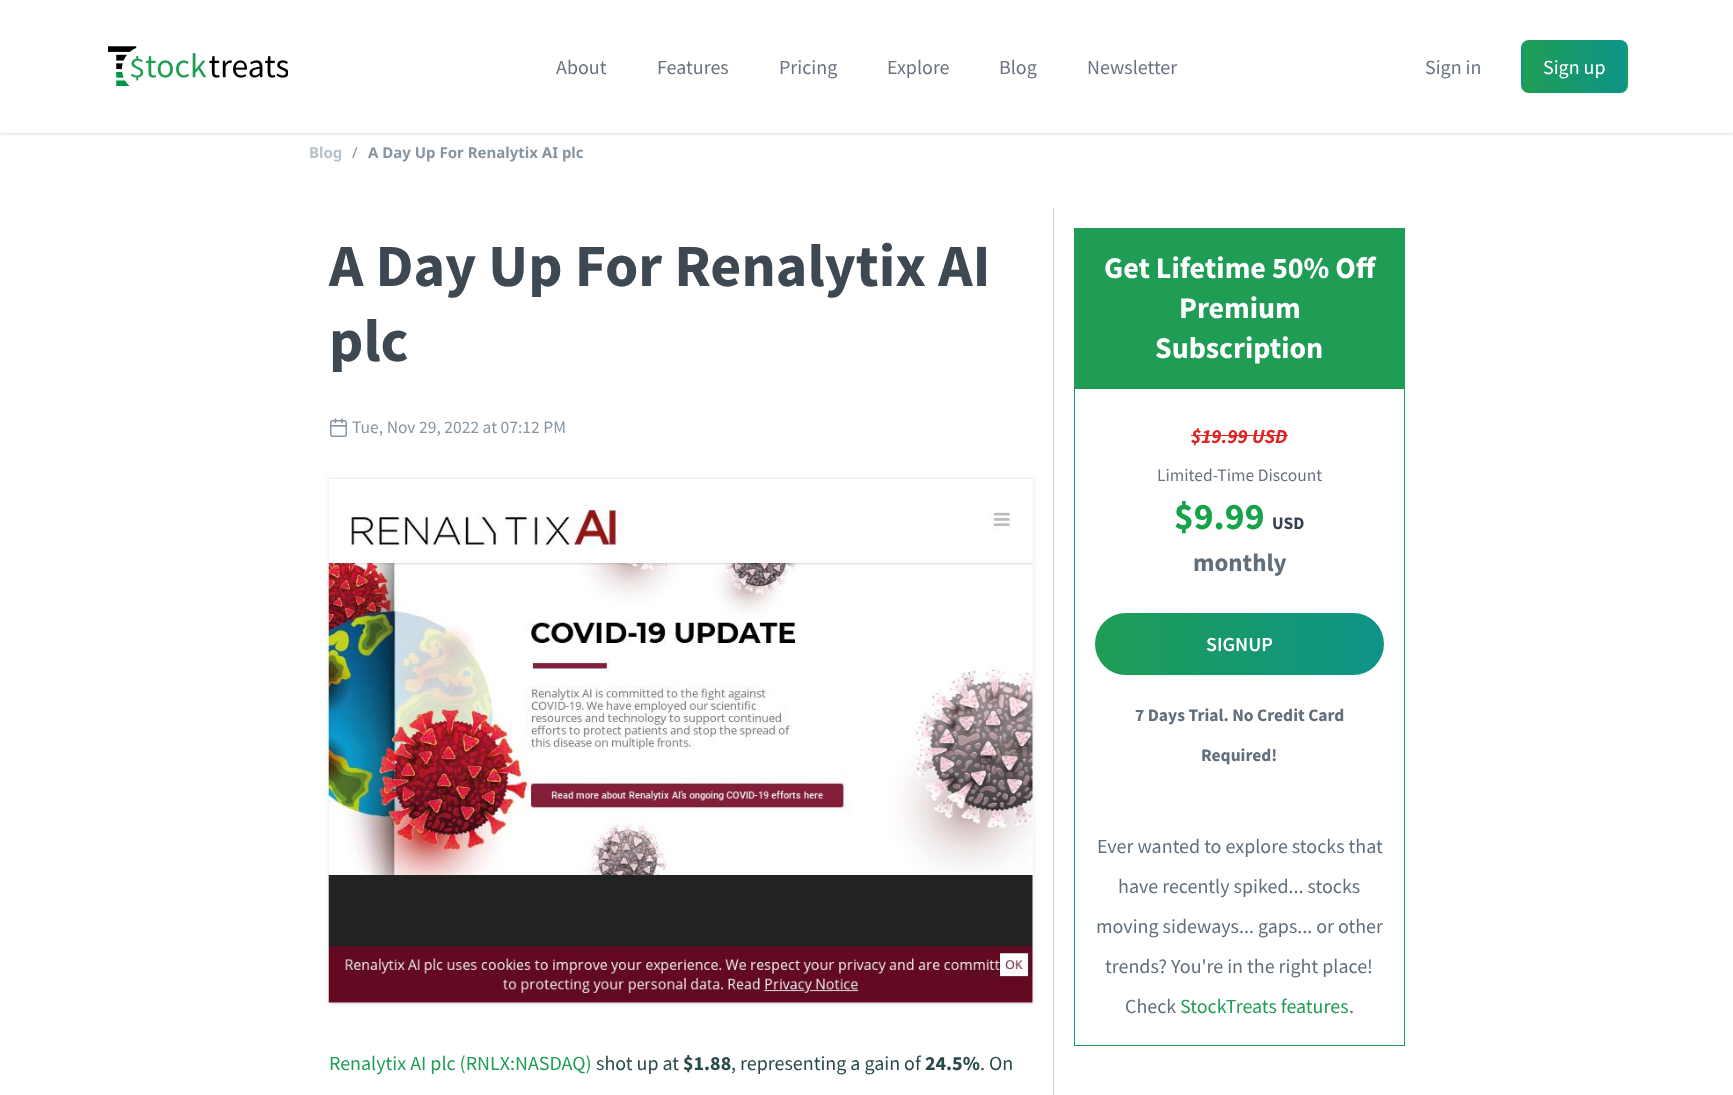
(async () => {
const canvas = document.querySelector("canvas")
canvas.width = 1733
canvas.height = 1095
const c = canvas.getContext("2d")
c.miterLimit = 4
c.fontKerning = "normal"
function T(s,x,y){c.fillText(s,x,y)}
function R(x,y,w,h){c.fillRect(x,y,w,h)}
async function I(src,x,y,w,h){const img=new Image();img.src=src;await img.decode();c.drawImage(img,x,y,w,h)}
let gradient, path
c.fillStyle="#fff"
R(0,0,1733,1095)
c.fillStyle="#0000001a"
c.filter="blur(1px)"
c.beginPath()
c.rect(1,3,1732,130)
c.fill()
c.filter="none"
c.filter="blur(2px)"
c.beginPath()
c.rect(0,1,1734,133)
c.fill()
c.filter="none"
c.fillStyle="#fff"
R(0,0,1733,133)
await I("1.png",108,46,180,40)
c.font="20px Source Sans Pro"
c.fillStyle="#6b7280"
T("About",556,74)
T("Features",657,74)
T("Pricing",779,74)
T("Explore",887,74)
T("Blog",999,74)
T("Newsletter",1087,74)
T("Sign in",1425,74)
c.fillStyle="#0000000d"
c.filter="blur(1px)"
c.beginPath()
c.roundRect(1521,41,107,53,8)
c.fill()
c.filter="none"
c.save()
c.beginPath()
c.roundRect(1521,40,107,53,8)
c.clip()
gradient = c.createLinearGradient(1419,66,1523,66)
gradient.addColorStop(0,"#1f9d55")
gradient.addColorStop(1,"#0d9488")
c.fillStyle = gradient
R(1521,40,2,53)
gradient = c.createLinearGradient(1523,66,1626,66)
gradient.addColorStop(0,"#1f9d55")
gradient.addColorStop(1,"#0d9488")
c.fillStyle = gradient
R(1523,40,103,53)
gradient = c.createLinearGradient(1626,66,1730,66)
gradient.addColorStop(0,"#1f9d55")
gradient.addColorStop(1,"#0d9488")
c.fillStyle = gradient
R(1626,40,2,53)
c.restore()
c.fillStyle="#fff"
T("Sign up",1543,74)
c.font="bold 15px Noto Sans"
c.fillStyle="#b8c2cc"
T("Blog",309,158)
c.font="15px Noto Sans"
c.fillStyle="#8795a1"
T("/",352,158)
c.font="bold 15px Noto Sans"
T("A Day Up For Renalytix AI plc",368,158)
c.font="bold 60px Source Sans Pro"
c.fillStyle="#3d4852"
T("A Day Up For Renalytix AI",329,286)
T("plc",329,361)
await I("2.png",330,418,18,19)
c.font="17.5px Source Sans Pro"
c.fillStyle="#8795a1"
T("Tue, Nov 29, 2022 at 07:12 PM",352,433)
c.fillStyle="#0000001a"
c.filter="blur(1px)"
c.beginPath()
c.rect(330,478,701,525)
c.fill()
c.filter="none"
c.save()
path = new Path2D("M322 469h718v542h-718zm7 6h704v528h-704z")
c.clip(path,"evenodd")
c.filter="blur(2px)"
c.beginPath()
c.rect(329,476,704,528)
c.fill()
c.filter="none"
c.restore()
await I("3.png",328,479,705,524)
c.font="20px Source Sans Pro"
c.fillStyle="#1f9d55"
T("Renalytix AI plc (RNLX:NASDAQ)",329,1070)
c.fillStyle="#284a4a"
T("shot up at",596,1070)
c.font="bold 20px Source Sans Pro"
T("$1.88",683,1070)
c.font="20px Source Sans Pro"
T(", representing a gain of",731,1070)
c.font="bold 20px Source Sans Pro"
T("24.5%",925,1070)
c.font="20px Source Sans Pro"
T(". On",980,1070)
c.fillStyle="#d1d5db"
R(1053,208,1,887)
c.fillStyle="#1f9d55"
R(1074,228,331,160)
c.font="bold 30px Source Sans Pro"
c.fillStyle="#fff"
T("Get Lifetime 50% Off",1104,278)
T("Premium",1179,318)
T("Subscription",1155,358)
c.strokeStyle="#1f9d55"
c.strokeRect(1074.5,388.5,330,657)
c.font="italic bold 20px Source Sans Pro"
c.fillStyle="#dc2626"
T("$19.99 USD",1191,443)
R(1191,435,97,1)
c.font="17.5px Source Sans Pro"
c.fillStyle="#6b7280"
T("Limited-Time Discount",1157,481)
c.font="bold 37.5px Source Sans Pro"
c.fillStyle="#16a34a"
T("$9.99",1174,529)
c.font="bold 17.5px Source Sans Pro"
c.fillStyle="#374151"
T("USD",1272,529)
c.font="bold 25px Source Sans Pro"
c.fillStyle="#606f7b"
T("monthly",1193,571)
c.fillStyle="#0000000d"
c.filter="blur(1px)"
c.beginPath()
c.roundRect(1095,614,289,62,31)
c.fill()
c.filter="none"
c.save()
c.beginPath()
c.roundRect(1095,613,289,62,31)
c.clip()
gradient = c.createLinearGradient(810,644,1096,644)
gradient.addColorStop(0,"#1f9d55")
gradient.addColorStop(1,"#0d9488")
c.fillStyle = gradient
R(1095,636,1,16)
gradient = c.createLinearGradient(1096,644,1383,644)
gradient.addColorStop(0,"#1f9d55")
gradient.addColorStop(1,"#0d9488")
c.fillStyle = gradient
R(1096,613,287,62)
gradient = c.createLinearGradient(1383,644,1669,644)
gradient.addColorStop(0,"#1f9d55")
gradient.addColorStop(1,"#0d9488")
c.fillStyle = gradient
R(1383,636,1,16)
c.restore()
c.font="600 20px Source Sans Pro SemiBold"
c.fillStyle="#fff"
T("SIGNUP",1206,651)
c.font="bold 17.5px Source Sans Pro"
c.fillStyle="#606f7b"
T("7 Days Trial. No Credit Card",1135,721)
T("Required!",1201,761)
c.font="20px Source Sans Pro"
T("Ever wanted to explore stocks that",1097,853)
T("have recently spiked... stocks",1118,893)
T("moving sideways... gaps... or other",1096,933)
T("trends? You're in the right place!",1105,973)
T("Check",1125,1013)
c.fillStyle="#1f9d55"
T("StockTreats features",1180,1013)
c.fillStyle="#606f7b"
T(".",1349,1013)
})()
